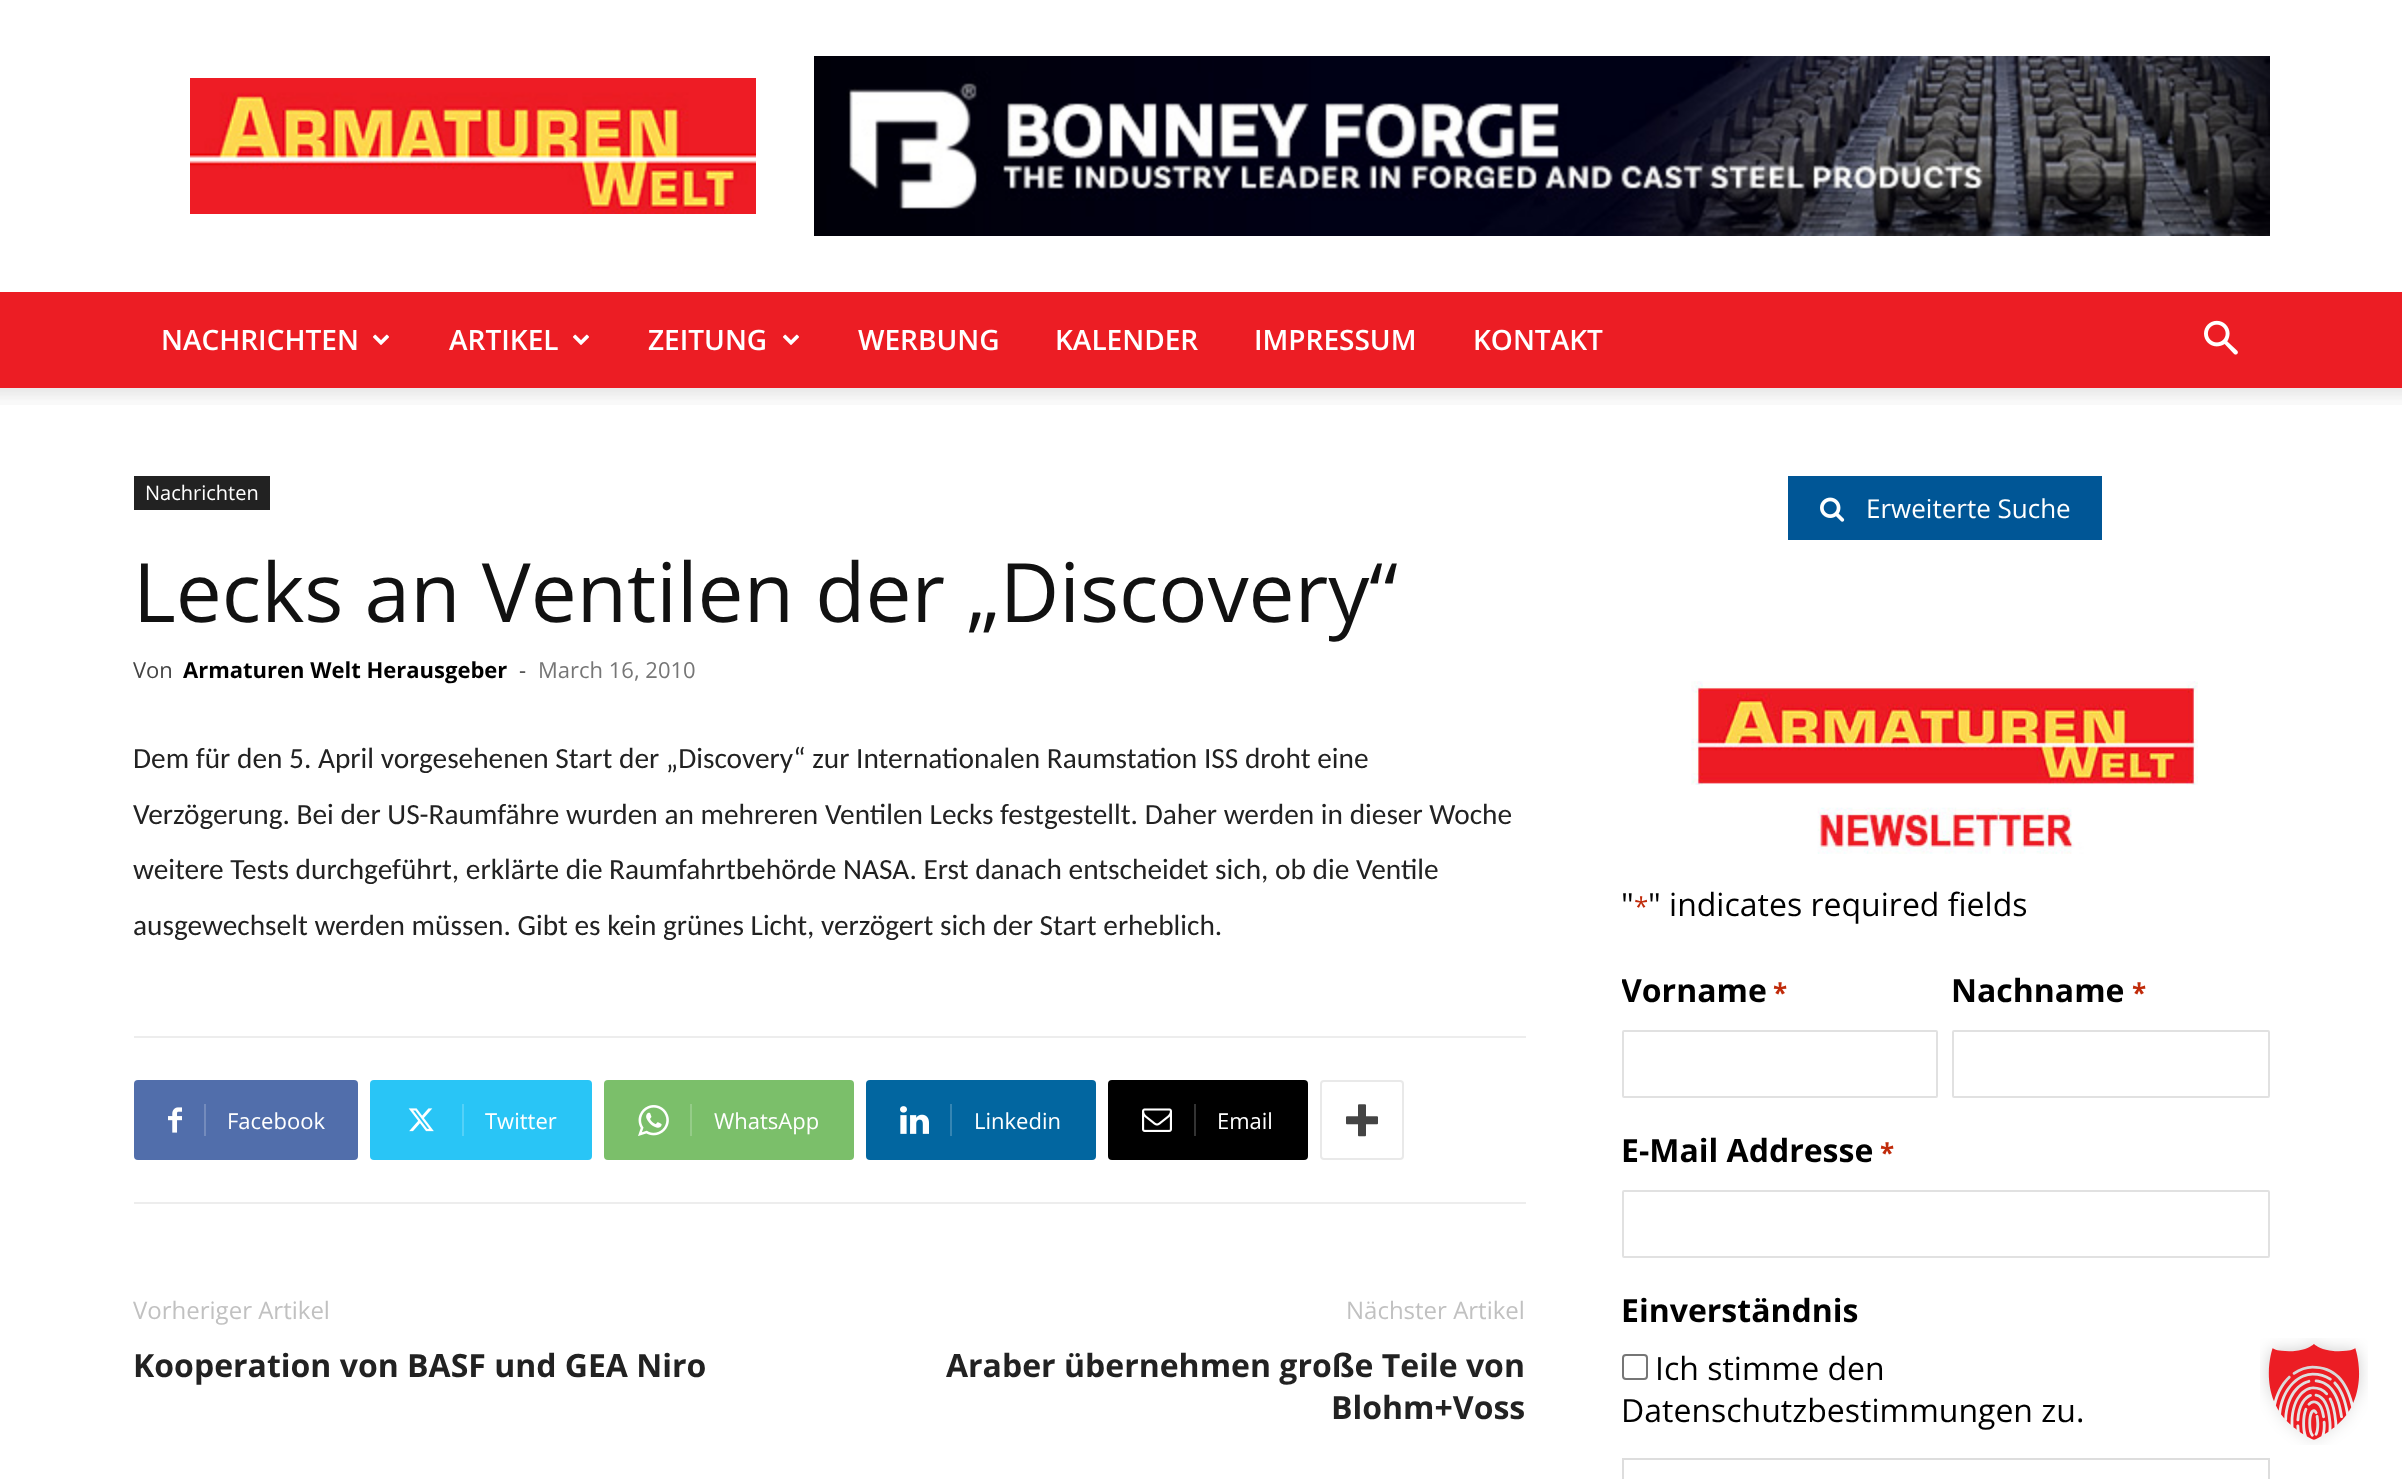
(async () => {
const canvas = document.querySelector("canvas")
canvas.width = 2402
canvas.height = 1479
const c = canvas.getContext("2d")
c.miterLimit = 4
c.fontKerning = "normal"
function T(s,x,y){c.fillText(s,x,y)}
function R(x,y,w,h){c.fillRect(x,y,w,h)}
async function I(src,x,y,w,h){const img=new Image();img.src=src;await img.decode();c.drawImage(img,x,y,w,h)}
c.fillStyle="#fff"
R(0,0,2402,1479)
await I("1.png",190,78,566,136)
await I("2.png",814,56,1456,180)
c.fillStyle="#ec1d24"
R(0,292,2402,96)
c.font="600 28px Open Sans"
c.fillStyle="#fff"
T("NACHRICHTEN",161,350)
await I("3.png",373,334,16,11)
T("ARTIKEL",449,350)
await I("3.png",573,334,16,11)
T("ZEITUNG",648,350)
await I("3.png",783,334,16,11)
T("WERBUNG",858,350)
T("KALENDER",1055,350)
T("IMPRESSUM",1254,350)
T("KONTAKT",1473,350)
await I("4.png",2204,320,34,35)
await I("5.png",0,388,2402,17)
c.fillStyle="#222"
R(134,476,136,34)
c.font="20px Open Sans"
c.fillStyle="#fff"
T("Nachrichten",145,500)
c.font="82px Open Sans"
c.fillStyle="#111"
T("Lecks an Ventilen der „Discovery“",133,622)
c.font="22px Open Sans"
c.fillStyle="#444"
T("Von",133,678)
c.font="bold 22px Open Sans"
c.fillStyle="#000"
T("Armaturen Welt Herausgeber",183,678)
c.font="22px Open Sans"
c.fillStyle="#444"
T("-",519,678)
c.fillStyle="#767676"
T("March 16, 2010",538,678)
c.font="29.35px Carlito"
c.fillStyle="#222"
T("Dem für den 5. April vorgesehenen Start der „Discovery“ zur Internationalen Raumstation ISS droht eine",133,768)
T("Verzögerung. Bei der US-Raumfähre wurden an mehreren Ventilen Lecks festgestellt. Daher werden in dieser Woche",133,824)
T("weitere Tests durchgeführt, erklärte die Raumfahrtbehörde NASA. Erst danach entscheidet sich, ob die Ventile",133,879)
T("ausgewechselt werden müssen. Gibt es kein grünes Licht, verzögert sich der Start erheblich.",133,935)
c.fillStyle="#ededed"
R(134,1036,1392,2)
R(134,1202,1392,2)
c.fillStyle="#516eab"
c.beginPath()
c.roundRect(204,1080,154,80,[0,4,4,0])
c.fill()
c.beginPath()
c.roundRect(134,1080,82,80,[4,0,0,4])
c.fill()
await I("6.png",168,1107,14,26)
c.fillStyle="#748bbc"
R(204,1104,2,32)
c.font="22px Open Sans"
c.fillStyle="#fff"
T("Facebook",227,1129)
c.fillStyle="#29c5f6"
c.beginPath()
c.roundRect(462,1080,130,80,[0,4,4,0])
c.fill()
c.beginPath()
c.roundRect(370,1080,104,80,[4,0,0,4])
c.fill()
await I("7.png",408,1108,26,24)
c.fillStyle="#54d1f8"
R(462,1104,2,32)
c.fillStyle="#fff"
T("Twitter",485,1129)
c.fillStyle="#7bbf6a"
c.beginPath()
c.roundRect(690,1080,164,80,[0,4,4,0])
c.fill()
c.beginPath()
c.roundRect(604,1080,98,80,[4,0,0,4])
c.fill()
await I("8.png",638,1105,31,31)
c.fillStyle="#95cc88"
R(690,1104,2,32)
c.fillStyle="#fff"
T("WhatsApp",714,1129)
c.fillStyle="#0266a0"
c.beginPath()
c.roundRect(950,1080,146,80,[0,4,4,0])
c.fill()
c.beginPath()
c.roundRect(866,1080,96,80,[4,0,0,4])
c.fill()
await I("9.png",900,1106,29,28)
c.fillStyle="#3585b3"
R(950,1104,2,32)
c.fillStyle="#fff"
T("Linkedin",974,1129)
c.fillStyle="#000"
c.beginPath()
c.roundRect(1194,1080,114,80,[0,4,4,0])
c.fill()
c.beginPath()
c.roundRect(1108,1080,98,80,[4,0,0,4])
c.fill()
await I("10.png",1142,1108,30,24)
c.fillStyle="#333"
R(1194,1104,2,32)
c.fillStyle="#fff"
T("Email",1217,1129)
c.beginPath()
c.roundRect(1321,1081,82,78,3)
c.strokeStyle="#e9e9e9"
c.lineWidth=2
c.stroke()
await I("11.png",1346,1104,32,33)
c.font="24px Open Sans"
c.fillStyle="#c1c1c1"
T("Vorheriger Artikel",133,1319)
c.font="bold 32px Open Sans"
c.fillStyle="#222"
T("Kooperation von BASF und GEA Niro",133,1377)
c.font="24px Open Sans"
c.fillStyle="#c1c1c1"
T("Nächster Artikel",1346,1319)
c.font="bold 32px Open Sans"
c.fillStyle="#222"
T("Araber übernehmen große Teile von",946,1377)
T("Blohm+Voss",1331,1419)
c.fillStyle="#005696"
R(1788,476,314,64)
await I("12.png",1820,497,25,25)
c.font="26px Open Sans"
c.fillStyle="#fff"
T("Erweiterte Suche",1866,518)
await I("13.png",1691,681,507,173)
c.font="32px Open Sans"
c.fillStyle="#000"
T("\"",1621,916)
c.font="26px Open Sans"
c.fillStyle="#c02b0a"
T("*",1634,916)
c.font="32px Open Sans"
c.fillStyle="#000"
T("\" indicates required fields",1648,916)
c.save()
c.beginPath()
c.rect(1622,658,648,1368)
c.clip()
c.font="bold 32px Open Sans"
T("Vorname",1621,1002)
c.restore()
c.font="bold 26px Open Sans"
c.fillStyle="#c02b0a"
T("*",1773,1002)
c.beginPath()
c.roundRect(1623,1031,314,66,1)
c.strokeStyle="#e1e1e1"
c.stroke()
c.font="bold 32px Open Sans"
c.fillStyle="#000"
T("Nachname",1951,1002)
c.font="bold 26px Open Sans"
c.fillStyle="#c02b0a"
T("*",2132,1002)
c.beginPath()
c.roundRect(1953,1031,316,66,1)
c.stroke()
c.font="bold 32px Open Sans"
c.fillStyle="#000"
T("E-Mail Addresse",1621,1162)
c.font="bold 26px Open Sans"
c.fillStyle="#c02b0a"
T("*",1880,1162)
c.beginPath()
c.roundRect(1623,1191,646,66,1)
c.stroke()
c.font="bold 32px Open Sans"
c.fillStyle="#000"
T("Einverständnis",1621,1322)
c.beginPath()
c.roundRect(1623,1355,24,24,3)
c.strokeStyle="#767676"
c.stroke()
c.font="32px Open Sans"
T("Ich stimme den",1655,1380)
T("Datenschutzbestimmungen zu.",1621,1422)
c.strokeStyle="#ddd"
c.strokeRect(1623,1459,646,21)
await I("14.png",2260,1338,108,107)
})()
